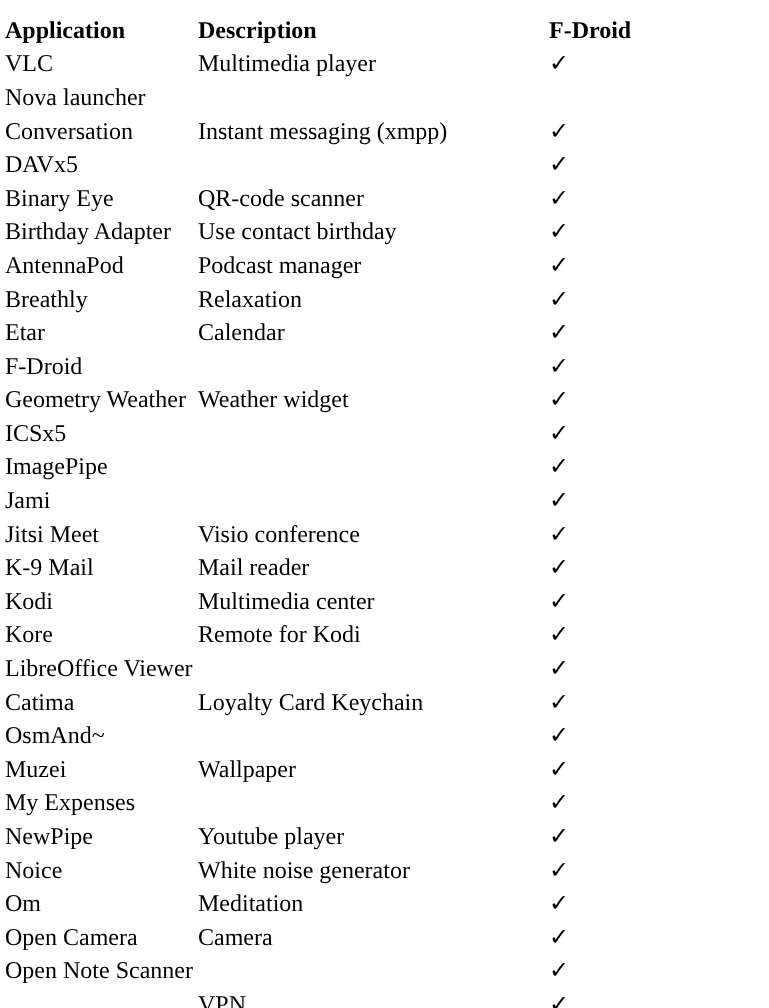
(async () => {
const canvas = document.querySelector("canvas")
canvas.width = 769
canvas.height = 1008
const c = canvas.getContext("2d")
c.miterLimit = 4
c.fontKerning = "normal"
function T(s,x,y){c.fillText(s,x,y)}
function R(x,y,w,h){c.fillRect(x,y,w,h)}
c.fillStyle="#fff"
R(0,0,769,1008)
c.font="bold 24px Liberation Serif"
c.fillStyle="#000"
T("Application",5,38)
T("Description",198,38)
T("F-Droid",549,38)
c.font="24px Liberation Serif"
T("VLC",5,71)
T("Multimedia player",198,71)
c.font="24px DejaVu Sans"
T("✓",549,71)
c.font="24px Liberation Serif"
T("Nova launcher",5,105)
T("Conversation",5,139)
T("Instant messaging (xmpp)",198,139)
c.font="24px DejaVu Sans"
T("✓",549,139)
c.font="24px Liberation Serif"
T("DAVx5",5,172)
c.font="24px DejaVu Sans"
T("✓",549,172)
c.font="24px Liberation Serif"
T("Binary Eye",5,206)
T("QR-code scanner",198,206)
c.font="24px DejaVu Sans"
T("✓",549,206)
c.font="24px Liberation Serif"
T("Birthday Adapter",5,239)
T("Use contact birthday",198,239)
c.font="24px DejaVu Sans"
T("✓",549,239)
c.font="24px Liberation Serif"
T("AntennaPod",5,273)
T("Podcast manager",198,273)
c.font="24px DejaVu Sans"
T("✓",549,273)
c.font="24px Liberation Serif"
T("Breathly",5,307)
T("Relaxation",198,307)
c.font="24px DejaVu Sans"
T("✓",549,307)
c.font="24px Liberation Serif"
T("Etar",5,340)
T("Calendar",198,340)
c.font="24px DejaVu Sans"
T("✓",549,340)
c.font="24px Liberation Serif"
T("F-Droid",5,374)
c.font="24px DejaVu Sans"
T("✓",549,374)
c.font="24px Liberation Serif"
T("Geometry Weather",5,407)
T("Weather widget",198,407)
c.font="24px DejaVu Sans"
T("✓",549,407)
c.font="24px Liberation Serif"
T("ICSx5",5,441)
c.font="24px DejaVu Sans"
T("✓",549,441)
c.font="24px Liberation Serif"
T("ImagePipe",5,474)
c.font="24px DejaVu Sans"
T("✓",549,474)
c.font="24px Liberation Serif"
T("Jami",5,508)
c.font="24px DejaVu Sans"
T("✓",549,508)
c.font="24px Liberation Serif"
T("Jitsi Meet",5,542)
T("Visio conference",198,542)
c.font="24px DejaVu Sans"
T("✓",549,542)
c.font="24px Liberation Serif"
T("K-9 Mail",5,575)
T("Mail reader",198,575)
c.font="24px DejaVu Sans"
T("✓",549,575)
c.font="24px Liberation Serif"
T("Kodi",5,609)
T("Multimedia center",198,609)
c.font="24px DejaVu Sans"
T("✓",549,609)
c.font="24px Liberation Serif"
T("Kore",5,642)
T("Remote for Kodi",198,642)
c.font="24px DejaVu Sans"
T("✓",549,642)
c.font="24px Liberation Serif"
T("LibreOffice Viewer",5,676)
c.font="24px DejaVu Sans"
T("✓",549,676)
c.font="24px Liberation Serif"
T("Catima",5,710)
T("Loyalty Card Keychain",198,710)
c.font="24px DejaVu Sans"
T("✓",549,710)
c.font="24px Liberation Serif"
T("OsmAnd~",5,743)
c.font="24px DejaVu Sans"
T("✓",549,743)
c.font="24px Liberation Serif"
T("Muzei",5,777)
T("Wallpaper",198,777)
c.font="24px DejaVu Sans"
T("✓",549,777)
c.font="24px Liberation Serif"
T("My Expenses",5,810)
c.font="24px DejaVu Sans"
T("✓",549,810)
c.font="24px Liberation Serif"
T("NewPipe",5,844)
T("Youtube player",198,844)
c.font="24px DejaVu Sans"
T("✓",549,844)
c.font="24px Liberation Serif"
T("Noice",5,878)
T("White noise generator",198,878)
c.font="24px DejaVu Sans"
T("✓",549,878)
c.font="24px Liberation Serif"
T("Om",5,911)
T("Meditation",198,911)
c.font="24px DejaVu Sans"
T("✓",549,911)
c.font="24px Liberation Serif"
T("Open Camera",5,945)
T("Camera",198,945)
c.font="24px DejaVu Sans"
T("✓",549,945)
c.font="24px Liberation Serif"
T("Open Note Scanner",5,978)
c.font="24px DejaVu Sans"
T("✓",549,978)
c.font="24px Liberation Serif"
T("VPN",198,1012)
c.font="24px DejaVu Sans"
T("✓",549,1012)
})()
